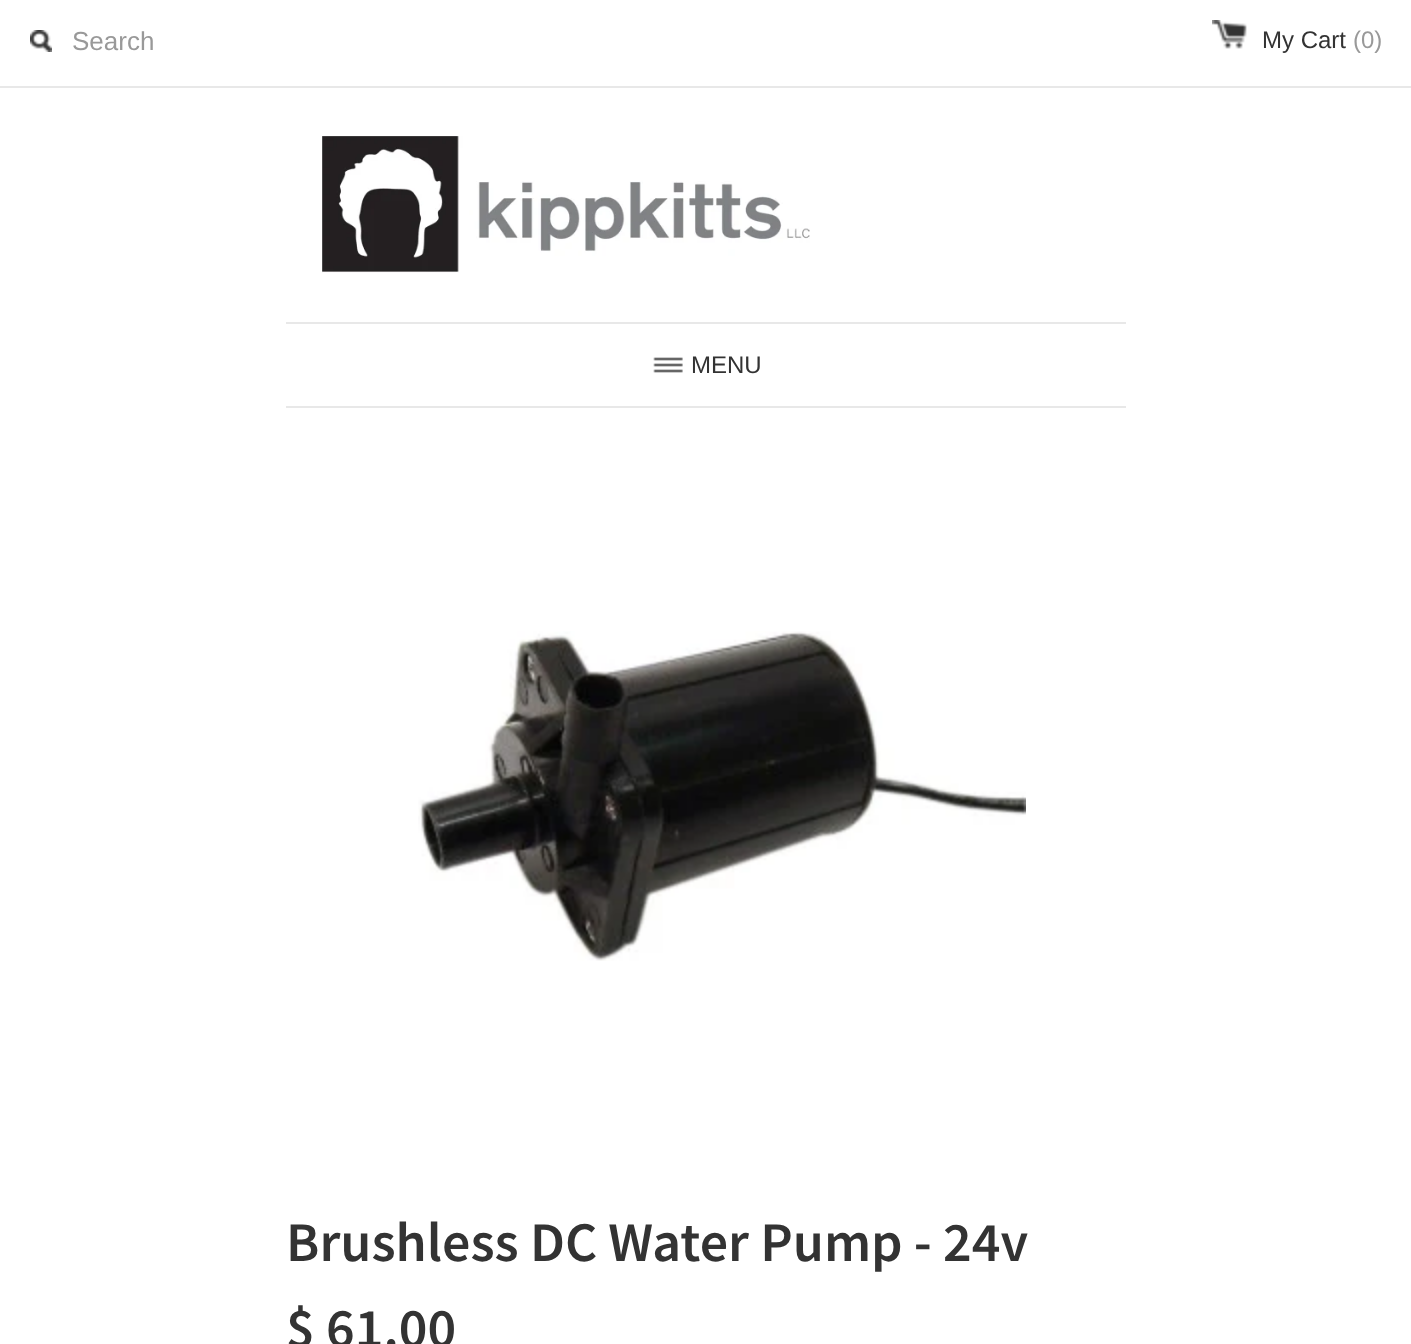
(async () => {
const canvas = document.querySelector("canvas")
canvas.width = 1411
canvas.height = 1344
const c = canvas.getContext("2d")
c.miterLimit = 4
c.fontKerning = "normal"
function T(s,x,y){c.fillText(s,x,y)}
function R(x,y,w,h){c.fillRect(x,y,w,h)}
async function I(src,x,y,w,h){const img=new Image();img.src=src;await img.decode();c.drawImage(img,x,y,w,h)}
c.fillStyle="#fff"
R(0,0,1411,1344)
c.fillStyle="#e8e8e8"
R(0,86,1411,2)
await I("1.png",30,30,22,22)
c.font="26px Liberation Sans"
c.fillStyle="#999"
T("Search",72,50)
await I("2.png",1212,20,35,29)
c.font="24px Liberation Sans"
c.fillStyle="#333"
T("My Cart",1262,48)
c.fillStyle="#999"
T("(0)",1353,48)
await I("3.png",322,136,488,137)
c.fillStyle="#e8e8e8"
R(286,322,840,2)
await I("4.png",653,357,30,16)
c.fillStyle="#333"
T("MENU",691,373)
c.fillStyle="#e8e8e8"
R(286,406,840,2)
await I("5.png",418,631,608,330)
c.font="600 56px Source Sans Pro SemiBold"
c.fillStyle="#333"
T("Brushless DC Water Pump - 24v",286,1261)
T("$ 61.00",286,1347)
})()
